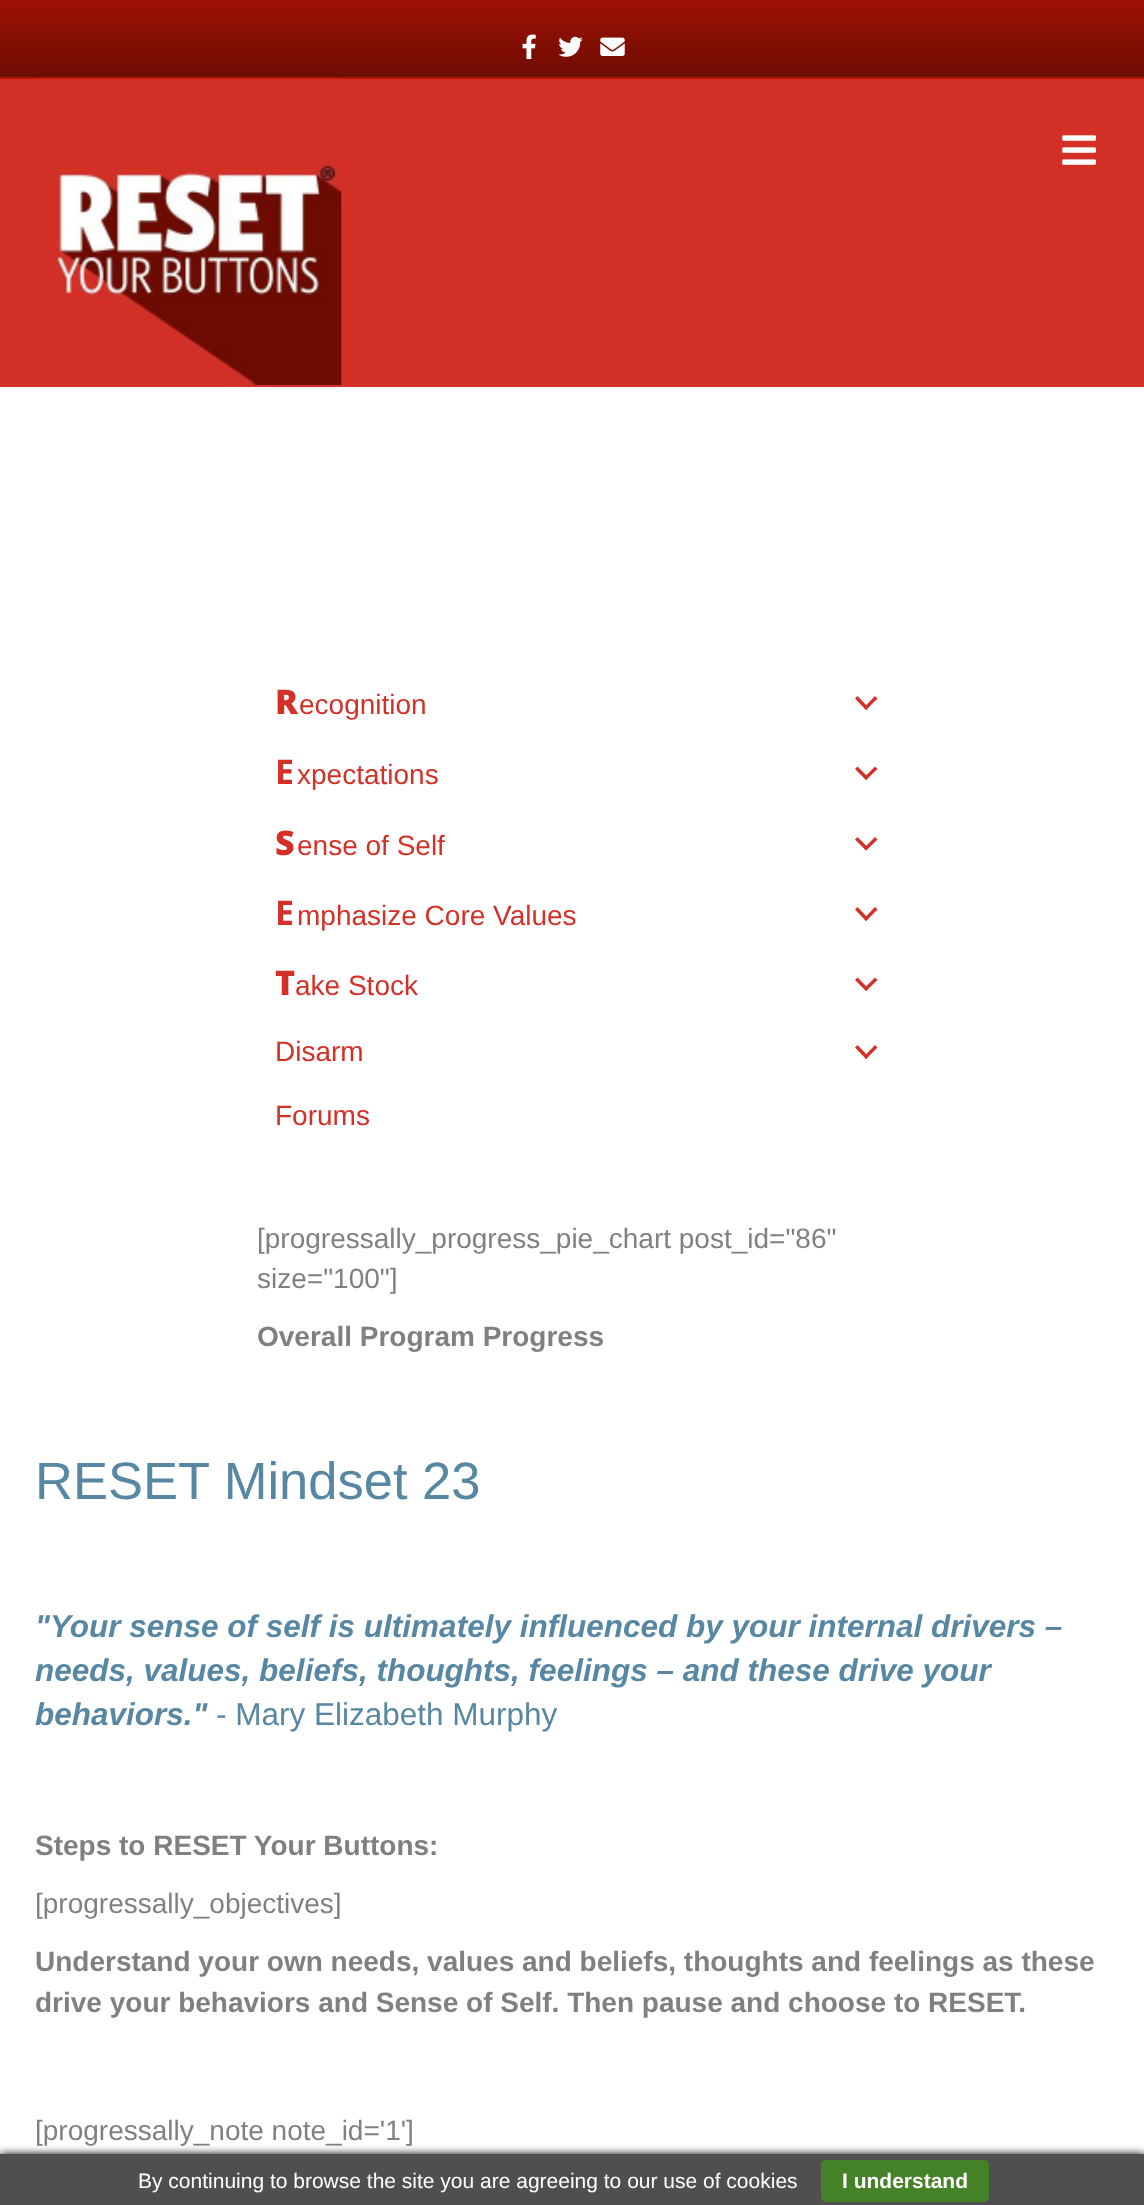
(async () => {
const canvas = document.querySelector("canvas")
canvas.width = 1144
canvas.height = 2205
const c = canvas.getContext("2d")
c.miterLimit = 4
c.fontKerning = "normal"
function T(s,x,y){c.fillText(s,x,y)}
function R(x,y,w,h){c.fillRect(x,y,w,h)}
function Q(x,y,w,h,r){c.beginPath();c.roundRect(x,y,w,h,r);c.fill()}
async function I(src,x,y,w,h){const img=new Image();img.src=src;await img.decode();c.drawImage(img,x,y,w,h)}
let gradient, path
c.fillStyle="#fff"
R(0,0,1144,2205)
gradient = c.createLinearGradient(572,0,572,77)
gradient.addColorStop(0,"#9f1104")
gradient.addColorStop(1,"#6d0c03")
c.fillStyle = gradient
R(0,0,1144,77)
c.fillStyle="#ae1305"
R(0,77,1144,2)
await I("1.png",522,34,14,26)
await I("2.png",558,36,25,21)
await I("3.png",600,37,25,19)
c.fillStyle="#d33027"
R(0,79,1144,308)
await I("4.png",35,78,307,307)
await I("5.png",1062,135,34,30)
c.font="900 34px Noto Sans"
T("R",275,714)
c.font="28px Liberation Sans"
T("ecognition",299,714)
path = new Path2D("M875 696l2.5 2.5l-11.5 11.5l-2-2.5z")
c.fill(path)
path = new Path2D("M857.5 696l11 11.5l-2.5 2.5l-11-11.5z")
c.fill(path)
c.font="bold 34px Noto Sans"
T("E",275,784)
c.font="28px Liberation Sans"
T("xpectations",297,784)
path = new Path2D("M875 766.5l2.5 2.5l-11.5 11l-2-2.5z")
c.fill(path)
path = new Path2D("M857.5 766.5l11 11l-2.5 2.5l-11-11z")
c.fill(path)
c.font="900 34px Noto Sans"
T("S",275,855)
c.font="28px Liberation Sans"
T("ense of Self",297,855)
path = new Path2D("M875 837l2.5 2.5l-11.5 11l-2-2.5z")
c.fill(path)
path = new Path2D("M857.5 837l11 11l-2.5 2.5l-11-11z")
c.fill(path)
c.font="bold 34px Noto Sans"
T("E",275,925)
c.font="28px Liberation Sans"
T("mphasize Core Values",297,925)
path = new Path2D("M875 907l2.5 2.5l-11.5 11.5l-2-2.5z")
c.fill(path)
path = new Path2D("M857.5 907l11 11.5l-2.5 2.5l-11-11.5z")
c.fill(path)
c.font="900 34px Noto Sans"
T("T",275,995)
c.font="28px Liberation Sans"
T("ake Stock",295,995)
path = new Path2D("M875 977.5l2.5 2.5l-11.5 11l-2-2.5z")
c.fill(path)
path = new Path2D("M857.5 977.5l11 11l-2.5 2.5l-11-11z")
c.fill(path)
T("Disarm",275,1061)
path = new Path2D("M875 1045l2.5 2.5l-11.5 11.5l-2-2.5z")
c.fill(path)
path = new Path2D("M857.5 1045l11 11.5l-2.5 2.5l-11-11.5z")
c.fill(path)
T("Forums",275,1125)
c.fillStyle="#808080"
T("[progressally_progress_pie_chart post_id=\"86\"",257,1248)
T("size=\"100\"]",257,1288)
c.font="bold 28px Liberation Sans"
T("Overall Program Progress",257,1346)
c.font="52.5px Liberation Sans"
c.fillStyle="#5787a2"
T("RESET Mindset 23",35,1499)
c.font="italic bold 31.5px Liberation Sans"
T("\"Your sense of self is ultimately influenced by your internal drivers –",35,1637)
T("needs, values, beliefs, thoughts, feelings – and these drive your",35,1681)
T("behaviors.\"",35,1725)
c.font="31.5px Liberation Sans"
T("- Mary Elizabeth Murphy",216,1725)
c.font="bold 28px Liberation Sans"
c.fillStyle="#808080"
T("Steps to RESET Your Buttons:",35,1855)
c.font="28px Liberation Sans"
T("[progressally_objectives]",35,1913)
c.font="bold 28px Liberation Sans"
T("Understand your own needs, values and beliefs, thoughts and feelings as these",35,1971)
T("drive your behaviors and Sense of Self. Then pause and choose to RESET.",35,2012)
c.font="28px Liberation Sans"
T("[progressally_note note_id='1']",35,2140)
c.fillStyle="#000"
c.filter="blur(4.5px)"
c.beginPath()
c.rect(0,2154,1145,51)
c.fill()
c.filter="none"
c.fillStyle="#4f4f4f"
R(0,2154,1144,51)
c.font="21px Liberation Sans"
c.fillStyle="#fff"
T("By continuing to browse the site you are agreeing to our use of cookies",138,2188)
c.fillStyle="#458227"
Q(821,2160,168,42,5)
c.font="bold 21px Liberation Sans"
c.fillStyle="#fff"
T("I understand",842,2188)
})()
